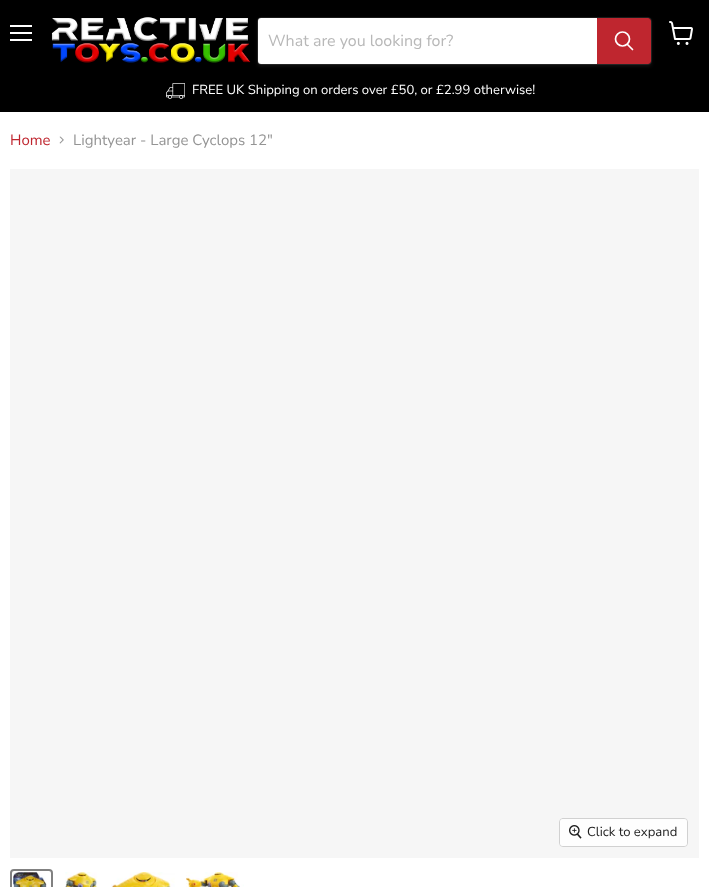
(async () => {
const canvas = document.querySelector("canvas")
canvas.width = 709
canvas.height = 887
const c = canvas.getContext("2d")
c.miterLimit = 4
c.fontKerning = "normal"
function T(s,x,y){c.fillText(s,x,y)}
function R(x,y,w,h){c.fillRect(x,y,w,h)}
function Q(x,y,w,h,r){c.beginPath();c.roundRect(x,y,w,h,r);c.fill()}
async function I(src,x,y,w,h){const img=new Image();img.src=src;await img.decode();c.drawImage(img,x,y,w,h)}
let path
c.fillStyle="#fff"
R(0,0,709,887)
c.fillStyle="#000"
R(0,0,709,112)
c.fillStyle="#fff"
R(10,25,22,2)
R(10,32,22,2)
R(10,39,22,2)
await I("1.png",51,17,200,46)
c.fillStyle="#8080801c"
c.filter="blur(1.5px)"
c.beginPath()
c.roundRect(257,19,395,48,4)
c.fill()
c.filter="none"
c.beginPath()
c.roundRect(257.5,17.5,394,47,3.5)
c.strokeStyle="#80808033"
c.stroke()
c.fillStyle="#fff"
c.beginPath()
c.roundRect(258,18,339,46,[3,0,0,3])
c.fill()
c.font="16px Nunito Sans"
c.fillStyle="#b8b8b8"
T("What are you looking for?",268,46)
c.fillStyle="#bf262f"
c.beginPath()
c.roundRect(597.5,18.5,53,45,[0,2.5,2.5,0])
c.fill()
c.strokeStyle="#bf262f"
c.stroke()
path = new Path2D("M632.5 49.5l-5-5")
c.strokeStyle="#fff"
c.lineWidth=1.7
c.lineCap="round"
c.stroke(path)
c.beginPath()
c.arc(622.5,39,7,0,7)
c.stroke()
await I("2.png",166,83,19,16)
c.font="13.1px Nunito Sans"
c.fillStyle="#fff"
T("FREE UK Shipping on orders over £50, or £2.99 otherwise!",192,94)
await I("3.png",669,21,24,24)
c.font="15px Nunito Sans"
c.fillStyle="#bf262f"
T("Home",10,145)
await I("4.png",59,136,5,8)
c.fillStyle="#949494"
T("Lightyear - Large Cyclops 12\"",73,145)
c.fillStyle="#f6f6f6"
R(10,169,689,689)
c.beginPath()
c.roundRect(559.5,818.5,128,28,3.5)
c.strokeStyle="#d1d1d1"
c.lineWidth=1
c.stroke()
c.fillStyle="#ffffffe6"
Q(560,819,127,27,3)
await I("5.png",569,825,13,14)
c.font="13.1px Nunito Sans"
c.fillStyle="#1d1d1d"
T("Click to expand",587,836)
c.beginPath()
c.roundRect(11,870,41,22,3)
c.strokeStyle="#818181"
c.lineWidth=2
c.stroke()
await I("6.png",13,872,34,15)
await I("7.png",65,872,33,15)
await I("8.png",111,872,64,15)
await I("9.png",186,872,58,15)
})()
